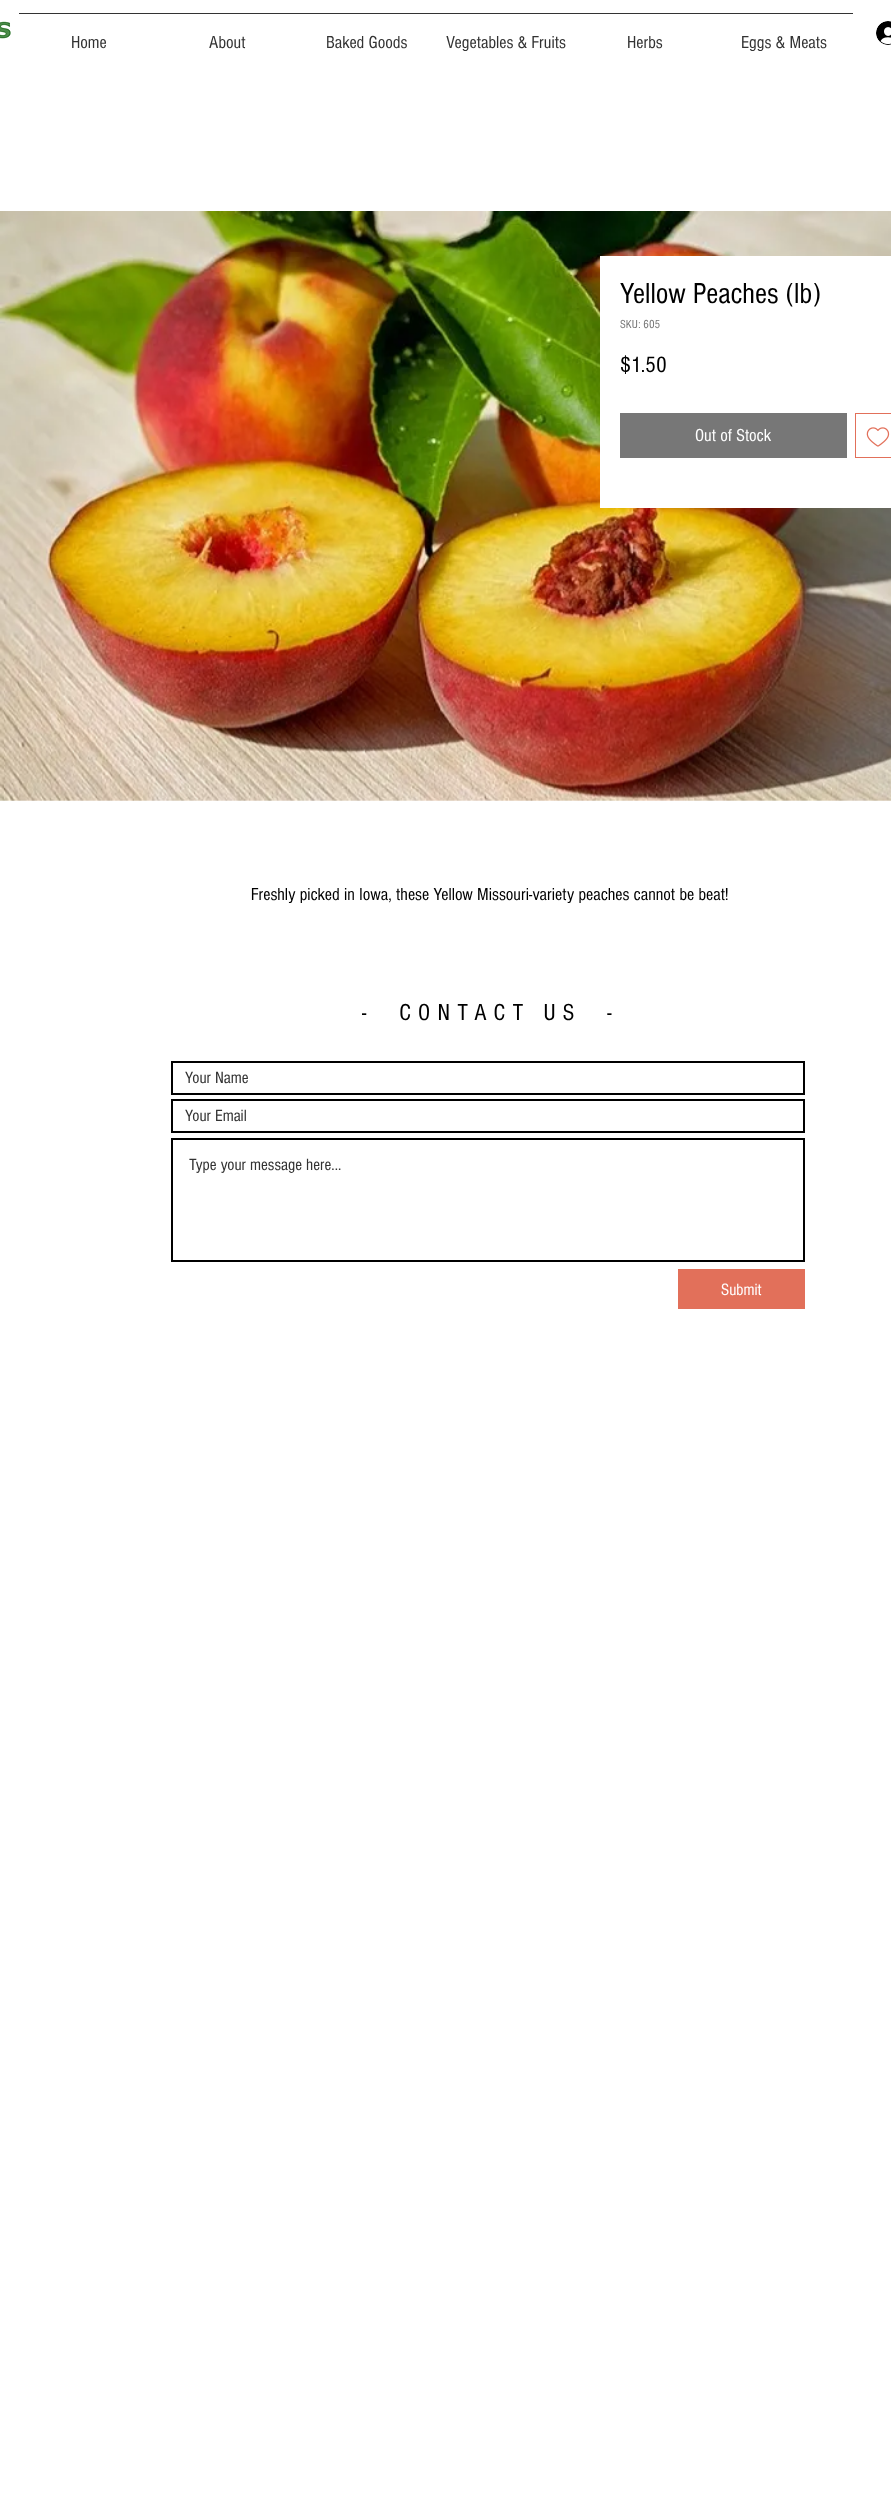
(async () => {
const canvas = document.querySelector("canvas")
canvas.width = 891
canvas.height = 2497
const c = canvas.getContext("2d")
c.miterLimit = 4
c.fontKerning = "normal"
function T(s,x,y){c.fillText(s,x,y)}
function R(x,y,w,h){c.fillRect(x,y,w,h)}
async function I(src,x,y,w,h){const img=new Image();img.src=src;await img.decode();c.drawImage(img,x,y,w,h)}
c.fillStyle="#fff"
R(0,0,891,2497)
await I("1.png",0,21,11,18)
c.fillStyle="#333"
R(19,13,834,1)
c.font="18px 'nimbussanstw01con'"
T("Home",71,48)
T("About",209,48)
T("Baked Goods",326,48)
T("Vegetables & Fruits",446,48)
T("Herbs",627,48)
T("Eggs & Meats",741,48)
await I("2.png",876,21,15,24)
await I("3.png",0,211,891,590)
c.fillStyle="#fff"
R(600,256,291,252)
c.font="30px 'nimbussanstw01con'"
c.fillStyle="#000"
T("Yellow Peaches (lb)",620,303)
c.font="12px 'nimbussanstw01con'"
c.fillStyle="#777"
T("SKU: 605",620,328)
c.font="23px 'nimbussanstw01con'"
c.fillStyle="#000"
T("$1.50",620,372)
c.fillStyle="#777"
R(620,413,227,45)
c.font="18px 'nimbussanstw01con'"
c.fillStyle="#fff"
T("Out of Stock",695,441)
c.strokeStyle="#e2705a"
c.strokeRect(855.5,413.5,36,44)
await I("4.png",866,427,24,20)
c.fillStyle="#000"
T("Freshly picked in Iowa, these Yellow Missouri-variety peaches cannot be beat!",251,900)
c.letterSpacing="7.25px"
c.font="24px 'nimbussanstw01con'"
T("-  CONTACT US  -",362,1020)
c.strokeStyle="#000"
c.lineWidth=2
c.strokeRect(172,1062,632,32)
c.letterSpacing="0px"
c.font="17px 'nimbussanstw01con'"
c.fillStyle="#333"
T("Your Name",185,1083)
c.strokeRect(172,1100,632,32)
T("Your Email",185,1121)
c.strokeRect(172,1139,632,122)
T("Type your message here...",189,1170)
c.fillStyle="#e2705a"
R(678,1269,127,40)
c.fillStyle="#fff"
T("Submit",721,1295)
})()
